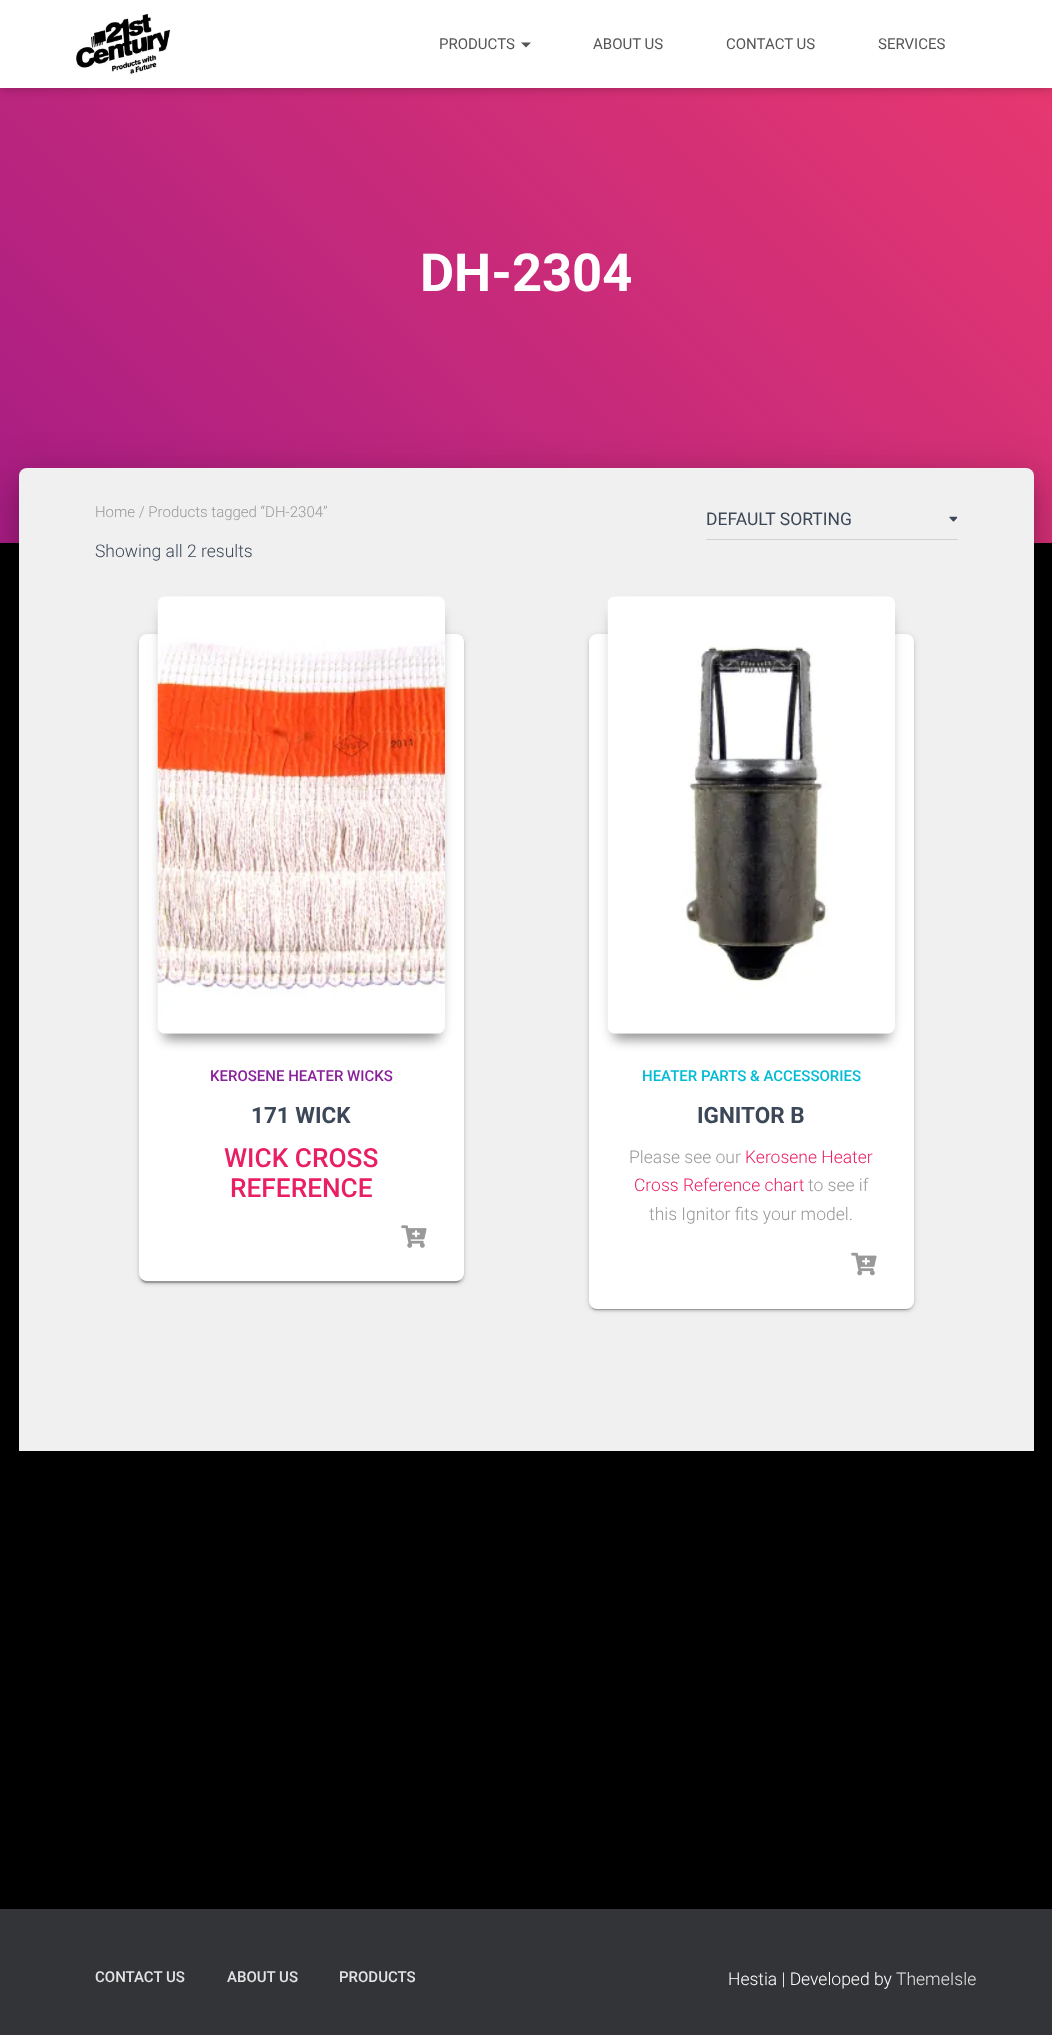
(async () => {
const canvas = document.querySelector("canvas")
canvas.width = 1052
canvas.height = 2035
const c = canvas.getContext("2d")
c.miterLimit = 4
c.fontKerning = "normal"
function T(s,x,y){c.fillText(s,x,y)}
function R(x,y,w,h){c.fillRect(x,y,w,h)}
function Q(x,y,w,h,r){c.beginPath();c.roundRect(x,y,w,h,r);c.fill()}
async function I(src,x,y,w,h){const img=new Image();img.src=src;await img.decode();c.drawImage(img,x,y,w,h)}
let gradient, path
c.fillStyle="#000"
R(0,0,1052,2035)
gradient = c.createLinearGradient(128,670,925,-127)
gradient.addColorStop(0,"#a81d84")
gradient.addColorStop(1,"#ea396f")
c.fillStyle = gradient
R(0,88,1052,455)
c.fillStyle="#0000001a"
c.filter="blur(3px)"
c.beginPath()
c.rect(3,8,1047,82)
c.fill()
c.filter="none"
c.fillStyle="#0000001f"
c.filter="blur(6px)"
c.beginPath()
c.rect(0,1,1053,88)
c.fill()
c.filter="none"
c.fillStyle="#fff"
R(0,0,1052,88)
await I("1.png",76,13,94,62)
c.font="15px Roboto"
c.fillStyle="#555"
T("PRODUCTS",439,49)
path = new Path2D("M521 42.5h10l-5 5z")
c.fill(path)
T("ABOUT US",593,49)
T("CONTACT US",726,49)
T("SERVICES",878,49)
c.font="bold 52.5px Roboto"
c.fillStyle="#fff"
T("DH-2304",420,291)
c.fillStyle="#00000033"
c.filter="blur(6px)"
c.beginPath()
c.roundRect(25,484,1003,971,1)
c.fill()
c.filter="none"
c.fillStyle="#0000001f"
c.filter="blur(19px)"
c.beginPath()
c.roundRect(13,469,1027,996,14)
c.fill()
c.filter="none"
c.fillStyle="#00000024"
c.filter="blur(15px)"
c.beginPath()
c.roundRect(16,485,1020,989,10)
c.fill()
c.filter="none"
c.fillStyle="#f0f0f0"
c.beginPath()
c.roundRect(19,468,1015,983,[8,8,0,0])
c.fill()
c.font="300 15px Roboto"
c.fillStyle="#999"
T("Home / Products tagged “DH-2304”",95,517)
c.font="300 17.5px Roboto"
c.fillStyle="#3c4858"
T("Showing all 2 results",95,557)
c.fillStyle="#d2d2d2"
R(706,539,252,1)
c.font="17.5px Roboto"
c.fillStyle="#3c4858"
T("DEFAULT SORTING",706,525)
await I("2.png",948,516,10,6)
c.fillStyle="#0000001f"
c.filter="blur(3px)"
c.beginPath()
c.roundRect(139,635,325,648,8)
c.fill()
c.filter="none"
c.fillStyle="#00000033"
c.filter="blur(0.5px)"
c.beginPath()
c.roundRect(141,640,320,643,5)
c.fill()
c.filter="none"
c.fillStyle="#00000024"
c.filter="blur(1px)"
c.beginPath()
c.roundRect(139,636,325,648,8)
c.fill()
c.filter="none"
c.fillStyle="#fff"
Q(139,634,325,647,8)
c.fillStyle="#00000033"
c.filter="blur(6px)"
c.beginPath()
c.roundRect(164,615,275,425,1)
c.fill()
c.filter="none"
c.filter="blur(6px)"
c.beginPath()
c.roundRect(164,613,275,425,1)
c.fill()
c.filter="none"
c.fillStyle="#0000003d"
c.filter="blur(9.5px)"
c.beginPath()
c.rect(168,613,267,417)
c.fill()
c.filter="none"
await I("3.png",157,596,288,438)
c.font="500 15px Roboto"
c.fillStyle="#89229b"
T("KEROSENE HEATER WICKS",210,1081)
c.font="bold 22.5px Roboto"
c.fillStyle="#3c4858"
T("171 WICK",251,1123)
c.font="500 26.25px Roboto"
c.fillStyle="#e91e63"
T("WICK CROSS",224,1167)
T("REFERENCE",230,1197)
await I("4.png",401,1225,26,23)
c.fillStyle="#0000001f"
c.filter="blur(3px)"
c.beginPath()
c.roundRect(589,635,325,675,8)
c.fill()
c.filter="none"
c.fillStyle="#00000033"
c.filter="blur(0.5px)"
c.beginPath()
c.roundRect(591,640,320,670,5)
c.fill()
c.filter="none"
c.fillStyle="#00000024"
c.filter="blur(1px)"
c.beginPath()
c.roundRect(589,636,325,675,8)
c.fill()
c.filter="none"
c.fillStyle="#fff"
Q(589,634,325,675,8)
c.fillStyle="#00000033"
c.filter="blur(6px)"
c.beginPath()
c.roundRect(614,615,275,425,1)
c.fill()
c.filter="none"
c.filter="blur(6px)"
c.beginPath()
c.roundRect(614,613,275,425,1)
c.fill()
c.filter="none"
c.fillStyle="#0000003d"
c.filter="blur(9.5px)"
c.beginPath()
c.rect(618,613,267,417)
c.fill()
c.filter="none"
await I("5.png",607,596,288,438)
c.font="500 15px Roboto"
c.fillStyle="#00bcd4"
T("HEATER PARTS & ACCESSORIES",642,1081)
c.font="bold 22.5px Roboto"
c.fillStyle="#3c4858"
T("IGNITOR B",697,1123)
c.font="300 17.5px Roboto"
c.fillStyle="#999"
T("Please see our",629,1163)
c.fillStyle="#e91e63"
T("Kerosene Heater",745,1163)
T("Cross Reference chart",634,1191)
c.fillStyle="#999"
T("to see if",808,1191)
T("this Ignitor fits your model.",649,1220)
await I("6.png",851,1252,26,24)
c.fillStyle="#323437"
R(0,1909,1052,126)
c.font="500 15px Roboto"
c.fillStyle="#e2e3e3"
T("CONTACT US",95,1982)
T("ABOUT US",227,1982)
T("PRODUCTS",339,1982)
c.font="300 17.5px Roboto"
c.fillStyle="#fff"
T("Hestia | Developed by",728,1985)
c.fillStyle="#e2e3e3"
T("ThemeIsle",896,1985)
})()
